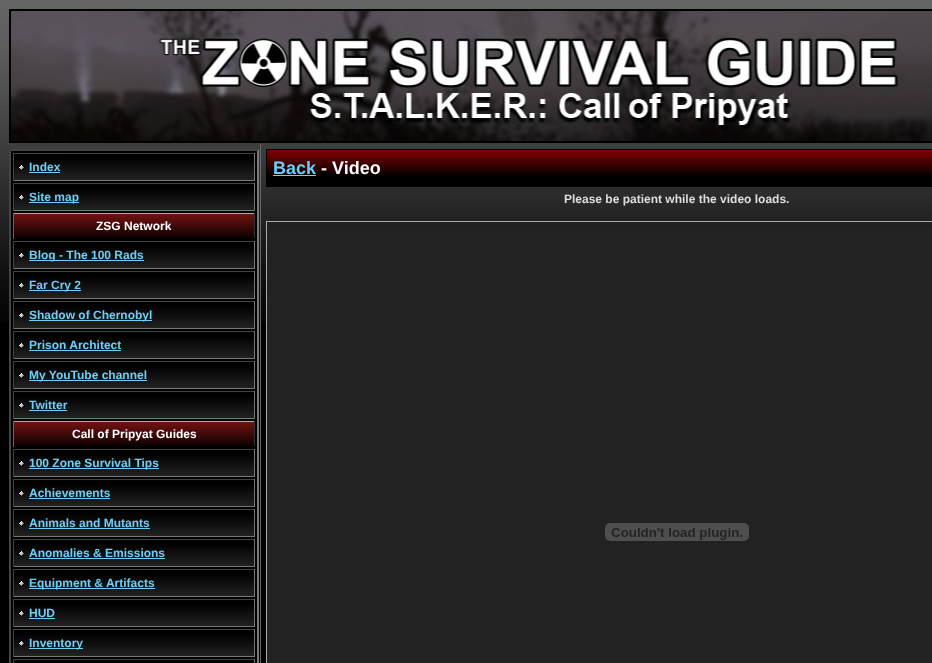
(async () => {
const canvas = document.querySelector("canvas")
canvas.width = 932
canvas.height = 663
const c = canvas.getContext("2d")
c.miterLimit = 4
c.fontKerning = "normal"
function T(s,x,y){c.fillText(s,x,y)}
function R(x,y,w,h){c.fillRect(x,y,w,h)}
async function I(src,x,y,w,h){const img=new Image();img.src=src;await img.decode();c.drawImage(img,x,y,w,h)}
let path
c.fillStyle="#000"
R(0,0,932,663)
await I("1.png",0,0,932,323)
c.strokeStyle="#000"
c.lineWidth=2
c.strokeRect(10,10,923,132)
await I("2.png",11,11,921,130)
R(9,149,250,174)
c.fillStyle="#444"
path = new Path2D("M9 149h250l-2 2h-246z")
c.fill(path)
c.fillStyle="#777"
path = new Path2D("M259 149v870l-2-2v-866z")
c.fill(path)
c.fillStyle="#444"
path = new Path2D("M9 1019v-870l2 2v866z")
c.fill(path)
await I("3.png",14,154,240,26)
R(13,153,242,1)
c.fillStyle="#777"
R(254,153,1,28)
R(13,180,242,1)
c.fillStyle="#444"
R(13,153,1,28)
await I("4.png",18,164,7,7)
c.font="bold 12px Liberation Sans"
c.fillStyle="#6dcff6"
T("Index",29,171)
R(29,172,31,1)
await I("3.png",14,184,240,26)
c.fillStyle="#444"
R(13,183,242,1)
c.fillStyle="#777"
R(254,183,1,28)
R(13,210,242,1)
c.fillStyle="#444"
R(13,183,1,28)
await I("4.png",18,194,7,7)
c.fillStyle="#6dcff6"
R(29,202,50,1)
T("Site map",29,201)
await I("5.png",14,214,240,24)
c.fillStyle="#aaa"
R(13,213,242,1)
c.fillStyle="#333"
R(254,213,1,26)
c.fillStyle="#000"
R(254,238,1,1)
c.fillStyle="#666"
R(13,213,1,26)
c.fillStyle="#fff"
T("ZSG Network",96,230)
await I("3.png",14,242,240,26)
c.fillStyle="#444"
R(13,241,242,1)
c.fillStyle="#777"
R(254,241,1,28)
R(13,268,242,1)
c.fillStyle="#444"
R(13,241,1,28)
await I("4.png",18,252,7,7)
c.fillStyle="#6dcff6"
R(29,260,115,1)
T("Blog - The 100 Rads",29,259)
await I("3.png",14,272,240,26)
c.fillStyle="#444"
R(13,271,242,1)
c.fillStyle="#777"
R(254,271,1,28)
R(13,298,242,1)
c.fillStyle="#444"
R(13,271,1,28)
await I("4.png",18,282,7,7)
c.fillStyle="#6dcff6"
R(29,290,52,1)
T("Far Cry 2",29,289)
await I("3.png",14,302,240,26)
c.fillStyle="#444"
R(13,301,242,1)
c.fillStyle="#777"
R(254,301,1,28)
R(13,328,242,1)
c.fillStyle="#444"
R(13,301,1,28)
await I("4.png",18,312,7,7)
c.fillStyle="#6dcff6"
R(29,320,123,1)
T("Shadow of Chernobyl",29,319)
await I("3.png",14,332,240,26)
c.fillStyle="#444"
R(13,331,242,1)
c.fillStyle="#777"
R(254,331,1,28)
R(13,358,242,1)
c.fillStyle="#444"
R(13,331,1,28)
await I("4.png",18,342,7,7)
c.fillStyle="#6dcff6"
T("Prison Architect",29,349)
R(29,350,92,1)
await I("3.png",14,362,240,26)
c.fillStyle="#444"
R(13,361,242,1)
c.fillStyle="#777"
R(254,361,1,28)
R(13,388,242,1)
c.fillStyle="#444"
R(13,361,1,28)
await I("4.png",18,372,7,7)
c.fillStyle="#6dcff6"
R(29,380,118,1)
T("My YouTube channel",29,379)
await I("3.png",14,392,240,26)
c.fillStyle="#444"
R(13,391,242,1)
c.fillStyle="#777"
R(254,391,1,28)
R(13,418,242,1)
c.fillStyle="#444"
R(13,391,1,28)
await I("4.png",18,402,7,7)
c.fillStyle="#6dcff6"
T("Twitter",29,409)
R(29,410,38,1)
await I("5.png",14,422,240,24)
c.fillStyle="#aaa"
R(13,421,242,1)
c.fillStyle="#333"
R(254,421,1,26)
c.fillStyle="#000"
R(254,446,1,1)
c.fillStyle="#666"
R(13,421,1,26)
c.fillStyle="#fff"
T("Call of Pripyat Guides",72,438)
await I("3.png",14,450,240,26)
c.fillStyle="#444"
R(13,449,242,1)
c.fillStyle="#777"
R(254,449,1,28)
R(13,476,242,1)
c.fillStyle="#444"
R(13,449,1,28)
await I("4.png",18,460,7,7)
c.fillStyle="#6dcff6"
R(29,468,130,1)
T("100 Zone Survival Tips",29,467)
await I("3.png",14,480,240,26)
c.fillStyle="#444"
R(13,479,242,1)
c.fillStyle="#777"
R(254,479,1,28)
R(13,506,242,1)
c.fillStyle="#444"
R(13,479,1,28)
await I("4.png",18,490,7,7)
c.fillStyle="#6dcff6"
T("Achievements",29,497)
R(29,498,81,1)
await I("3.png",14,510,240,26)
c.fillStyle="#444"
R(13,509,242,1)
c.fillStyle="#777"
R(254,509,1,28)
R(13,536,242,1)
c.fillStyle="#444"
R(13,509,1,28)
await I("4.png",18,520,7,7)
c.fillStyle="#6dcff6"
T("Animals and Mutants",29,527)
R(29,528,121,1)
await I("3.png",14,540,240,26)
c.fillStyle="#444"
R(13,539,242,1)
c.fillStyle="#777"
R(254,539,1,28)
R(13,566,242,1)
c.fillStyle="#444"
R(13,539,1,28)
await I("4.png",18,550,7,7)
c.fillStyle="#6dcff6"
T("Anomalies & Emissions",29,557)
R(29,558,136,1)
await I("3.png",14,570,240,26)
c.fillStyle="#444"
R(13,569,242,1)
c.fillStyle="#777"
R(254,569,1,28)
R(13,596,242,1)
c.fillStyle="#444"
R(13,569,1,28)
await I("4.png",18,580,7,7)
c.fillStyle="#6dcff6"
R(29,588,126,1)
T("Equipment & Artifacts",29,587)
await I("3.png",14,600,240,26)
c.fillStyle="#444"
R(13,599,242,1)
c.fillStyle="#777"
R(254,599,1,28)
R(13,626,242,1)
c.fillStyle="#444"
R(13,599,1,28)
await I("4.png",18,610,7,7)
c.fillStyle="#6dcff6"
T("HUD",29,617)
R(29,618,26,1)
await I("3.png",14,630,240,26)
c.fillStyle="#444"
R(13,629,242,1)
c.fillStyle="#777"
R(254,629,1,28)
R(13,656,242,1)
c.fillStyle="#444"
R(13,629,1,28)
await I("4.png",18,640,7,7)
c.fillStyle="#6dcff6"
R(29,648,54,1)
T("Inventory",29,647)
c.fillStyle="#444"
R(13,659,242,1)
c.fillStyle="#777"
R(254,659,1,4)
c.fillStyle="#444"
R(13,659,1,4)
c.fillStyle="#666"
R(260,144,1,519)
c.fillStyle="#000"
R(267,176,665,10)
await I("6.png",267,150,665,26)
c.lineWidth=1
c.strokeRect(266.5,149.5,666,37)
c.font="bold 18px Liberation Sans"
c.fillStyle="#6dcff6"
T("Back",273,174)
R(273,175,43,1)
c.fillStyle="#fff"
T("- Video",321,174)
c.font="bold 12px Liberation Sans"
c.fillStyle="#ddd"
T("Please be patient while the video loads.",564,203)
c.fillStyle="#222"
R(267,228,665,435)
c.strokeStyle="#aaa"
c.strokeRect(266.5,221.5,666,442)
await I("7.png",605,523,144,18)
})()
